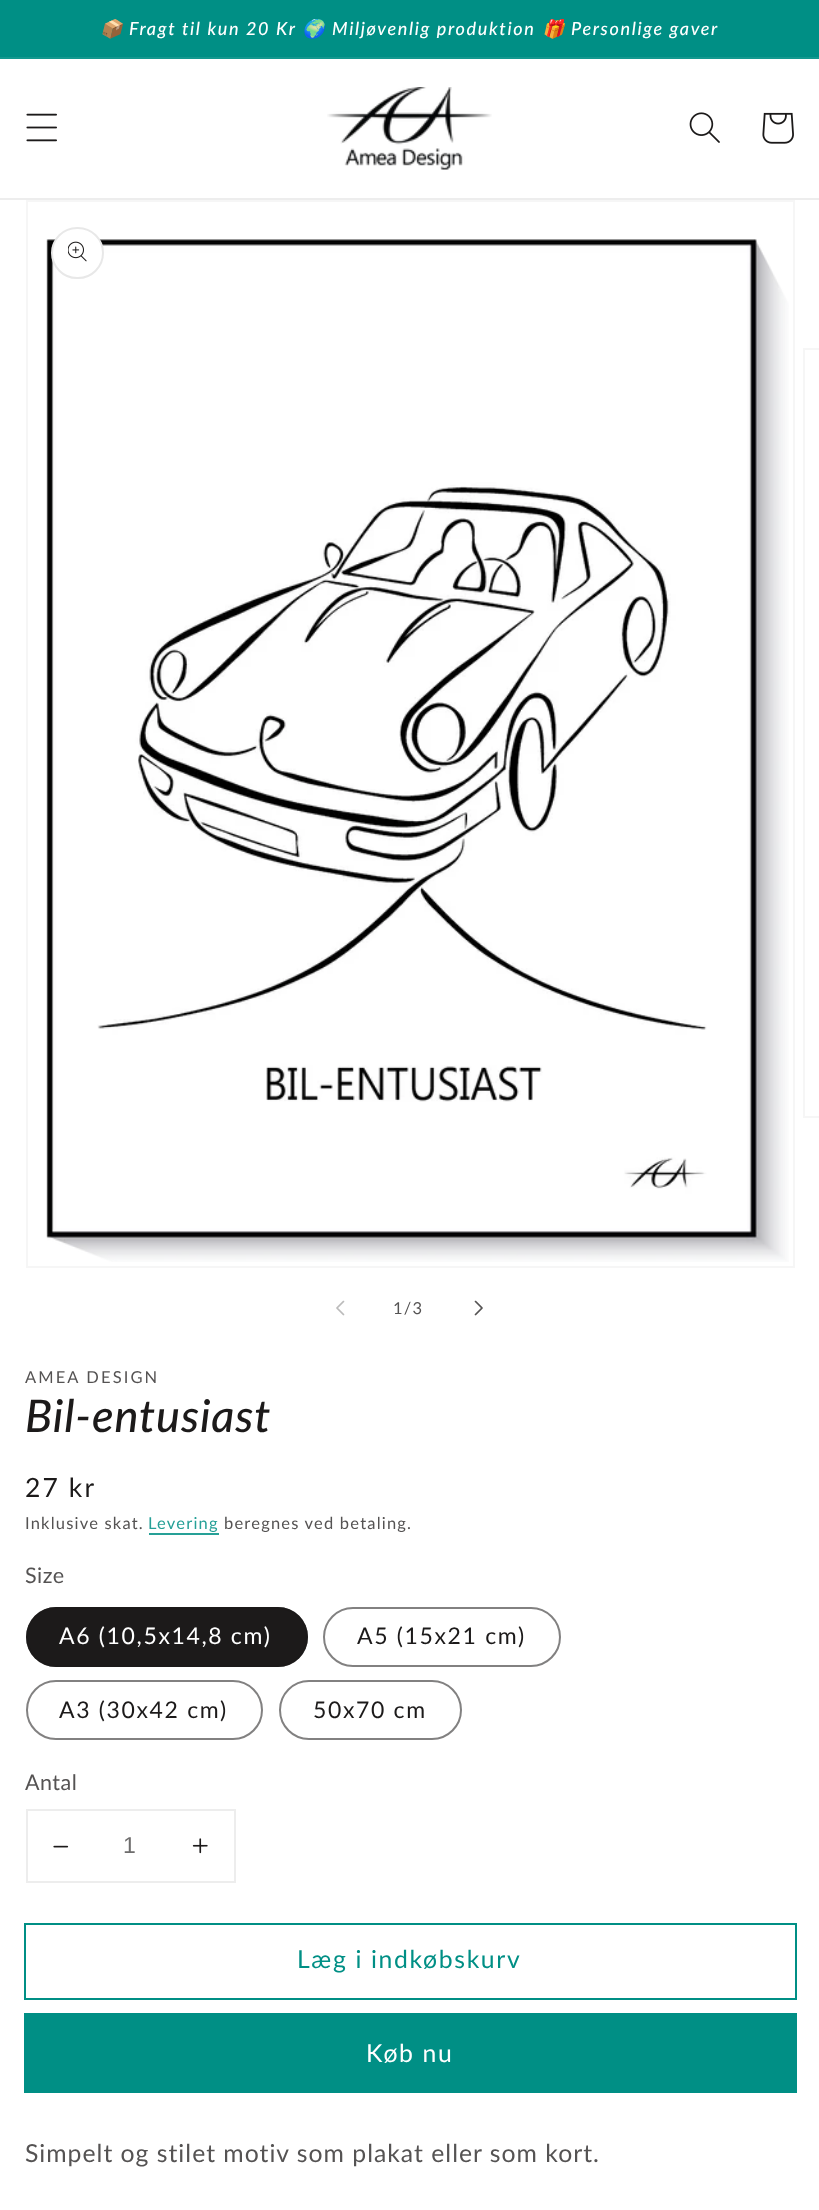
(async () => {
const canvas = document.querySelector("canvas")
canvas.width = 819
canvas.height = 2210
const c = canvas.getContext("2d")
c.miterLimit = 4
c.fontKerning = "normal"
function T(s,x,y){c.fillText(s,x,y)}
function R(x,y,w,h){c.fillRect(x,y,w,h)}
function Q(x,y,w,h,r){c.beginPath();c.roundRect(x,y,w,h,r);c.fill()}
async function I(src,x,y,w,h){const img=new Image();img.src=src;await img.decode();c.drawImage(img,x,y,w,h)}
c.fillStyle="#fff"
R(0,0,819,2210)
c.fillStyle="#008f85"
R(0,0,819,57)
c.fillStyle="#14988f"
R(0,57,819,2)
c.letterSpacing="1.65px"
c.font="italic 18px Noto Color Emoji"
c.fillStyle="#fff"
T("📦",100,35)
c.font="italic 500 18px Lato"
T("Fragt til kun 20 Kr",129,35)
c.font="italic 18px Noto Color Emoji"
T("🌍",302,35)
c.font="italic 500 18px Lato"
T("Miljøvenlig produktion",332,35)
c.font="italic 18px Noto Color Emoji"
T("🎁",542,35)
c.font="italic 500 18px Lato"
T("Personlige gaver",571,35)
c.fillStyle="#ededed"
R(0,198,819,2)
await I("1.png",26,113,31,29)
await I("2.png",327,87,165,83)
await I("3.png",689,112,31,31)
await I("4.png",762,112,32,32)
c.strokeStyle="#f6f6f6"
c.lineWidth=2
c.strokeRect(27,201,767,1066)
await I("6.png",46,239,743,1023)
c.fillStyle="#fff"
Q(51,227,53,52,26)
c.beginPath()
c.roundRect(52,228,51,50,25)
c.strokeStyle="#1c1a1a1a"
c.stroke()
await I("5.png",68,241,19,21)
c.strokeStyle="#f6f6f6"
c.strokeRect(804,349,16,768)
await I("7.png",336,1300,9,16)
c.letterSpacing="1.2px"
c.font="16.5px Lato"
c.fillStyle="#555353"
T("1/3",393,1314)
await I("8.png",474,1300,9,16)
c.letterSpacing="2.1px"
T("AMEA DESIGN",25,1383)
c.letterSpacing="0.9px"
c.font="italic 500 45px Lato"
c.fillStyle="#1c1a1a"
T("Bil-entusiast",25,1432)
c.letterSpacing="2.1px"
c.font="26.5px Lato"
T("27 kr",25,1497)
c.letterSpacing="1.2px"
c.font="16.5px Lato"
c.fillStyle="#555353"
T("Inklusive skat.",25,1529)
c.fillStyle="#26a097"
T("Levering",148,1529)
R(149,1533,70,2)
c.fillStyle="#555353"
T("beregnes ved betaling.",224,1529)
c.letterSpacing="0.5px"
c.font="21.5px Lato"
T("Size",25,1583)
c.fillStyle="#1c1a1a"
Q(26,1607,282,60,30)
c.beginPath()
c.roundRect(27,1608,280,58,29)
c.strokeStyle="#1c1a1a8c"
c.stroke()
c.letterSpacing="1.65px"
c.font="23px Lato"
c.fillStyle="#fff"
T("A6 (10,5x14,8 cm)",59,1644)
c.beginPath()
c.roundRect(324,1608,236,58,29)
c.strokeStyle="#828181"
c.stroke()
c.fillStyle="#1c1a1a"
T("A5 (15x21 cm)",357,1644)
c.beginPath()
c.roundRect(27,1681,235,58,29)
c.stroke()
T("A3 (30x42 cm)",59,1718)
c.beginPath()
c.roundRect(280,1681,181,58,29)
c.stroke()
T("50x70 cm",313,1718)
c.letterSpacing="0.5px"
c.font="21.5px Lato"
c.fillStyle="#555353"
T("Antal",25,1790)
c.strokeStyle="#ededed"
c.strokeRect(27,1810,208,72)
await I("9.png",53,1845,16,3)
c.letterSpacing="0px"
c.font="23px Liberation Sans"
c.fillStyle="#6e6d6d"
T("1",123,1853)
await I("10.png",192,1838,16,16)
c.strokeStyle="#008f85"
c.strokeRect(25,1924,771,75)
c.letterSpacing="1.65px"
c.font="24.75px Lato"
c.fillStyle="#008f85"
T("Læg i indkøbskurv",297,1968)
c.strokeRect(25,2014,771,78)
R(26,2015,769,76)
c.fillStyle="#fff"
T("Køb nu",366,2062)
c.letterSpacing="1px"
c.fillStyle="#555353"
T("Simpelt og stilet motiv som plakat eller som kort.",25,2162)
})()
